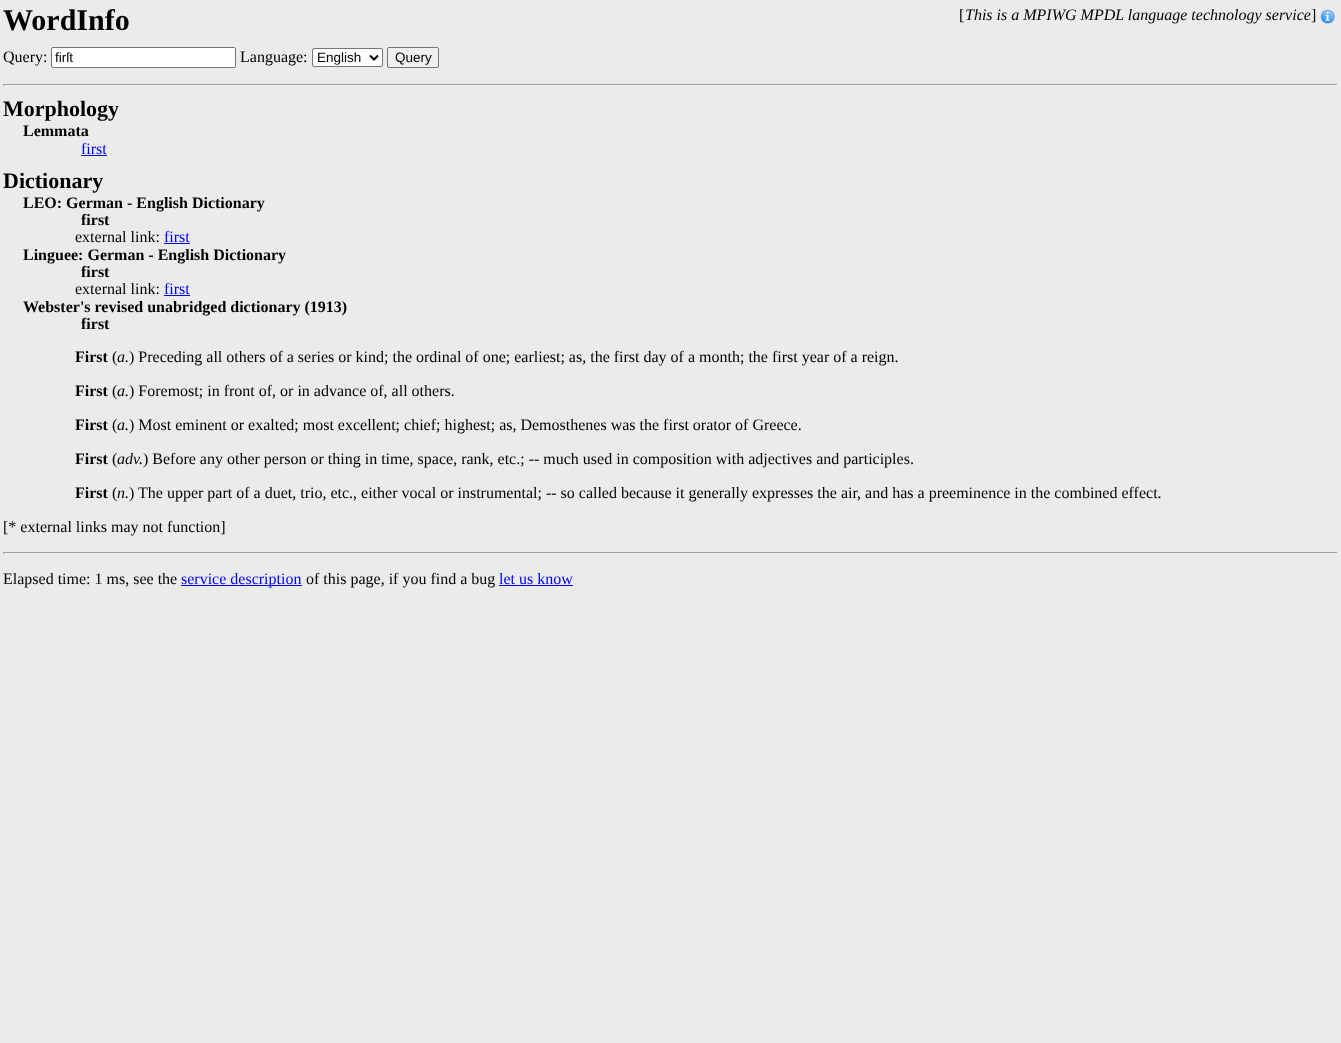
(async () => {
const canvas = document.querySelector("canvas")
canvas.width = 1341
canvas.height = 1043
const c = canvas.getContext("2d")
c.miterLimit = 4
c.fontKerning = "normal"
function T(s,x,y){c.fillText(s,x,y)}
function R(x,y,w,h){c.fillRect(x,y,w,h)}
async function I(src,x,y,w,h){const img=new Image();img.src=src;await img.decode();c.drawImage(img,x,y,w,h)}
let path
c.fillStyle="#ebebeb"
R(0,0,1341,1043)
c.font="bold 30px Liberation Serif"
c.fillStyle="#000"
T("WordInfo",3,30)
c.font="16px Liberation Serif"
T("[",959,20)
c.font="italic 16px Liberation Serif"
T("This is a MPIWG MPDL language technology service",965,20)
c.font="16px Liberation Serif"
T("]",1311,20)
await I("1.png",1320,9,15,15)
T("Query:",3,62)
c.fillStyle="#fff"
c.beginPath()
c.roundRect(51.5,47.5,184,20,1.5)
c.fill()
c.strokeStyle="#767676"
c.stroke()
c.font="13.5px Liberation Sans"
c.fillStyle="#000"
T("firſt",55,62)
c.font="16px Liberation Serif"
T("Language:",240,62)
c.fillStyle="#fff"
c.beginPath()
c.roundRect(312.5,48.5,70,18,1.5)
c.fill()
c.stroke()
path = new Path2D("M370 55.5l4 4l4-4")
c.strokeStyle="#000"
c.lineWidth=2
c.stroke(path)
c.font="13.5px Liberation Sans"
c.fillStyle="#000"
T("English",317,62)
c.fillStyle="#efefef"
c.beginPath()
c.roundRect(387.5,47.5,51,20,1.5)
c.fill()
c.strokeStyle="#767676"
c.lineWidth=1
c.stroke()
c.fillStyle="#000"
T("Query",395,62)
c.fillStyle="#9f9f9f"
R(3,84,1335,1)
c.fillStyle="#eee"
R(1337,84,1,2)
R(3,85,1335,1)
c.fillStyle="#9f9f9f"
R(3,84,1,2)
c.font="bold 22px Liberation Serif"
c.fillStyle="#000"
T("Morphology",3,116)
c.font="bold 16px Liberation Serif"
T("Lemmata",23,136)
c.font="16px Liberation Serif"
c.fillStyle="#00e"
T("first",81,154)
R(81,155,26,1)
c.font="bold 22px Liberation Serif"
c.fillStyle="#000"
T("Dictionary",3,188)
c.font="bold 16px Liberation Serif"
T("LEO: German - English Dictionary",23,208)
T("first",81,225)
c.font="16px Liberation Serif"
T("external link:",75,242)
c.fillStyle="#00e"
T("first",164,242)
R(164,243,26,1)
c.font="bold 16px Liberation Serif"
c.fillStyle="#000"
T("Linguee: German - English Dictionary",23,260)
T("first",81,277)
c.font="16px Liberation Serif"
T("external link:",75,294)
c.fillStyle="#00e"
T("first",164,294)
R(164,295,26,1)
c.font="bold 16px Liberation Serif"
c.fillStyle="#000"
T("Webster's revised unabridged dictionary (1913)",23,312)
T("first",81,329)
T("First",75,362)
c.font="16px Liberation Serif"
T("(",112,362)
c.font="italic 16px Liberation Serif"
T("a.",117,362)
c.font="16px Liberation Serif"
T(") Preceding all others of a series or kind; the ordinal of one; earliest; as, the first day of a month; the first year of a reign.",129,362)
c.font="bold 16px Liberation Serif"
T("First",75,396)
c.font="16px Liberation Serif"
T("(",112,396)
c.font="italic 16px Liberation Serif"
T("a.",117,396)
c.font="16px Liberation Serif"
T(") Foremost; in front of, or in advance of, all others.",129,396)
c.font="bold 16px Liberation Serif"
T("First",75,430)
c.font="16px Liberation Serif"
T("(",112,430)
c.font="italic 16px Liberation Serif"
T("a.",117,430)
c.font="16px Liberation Serif"
T(") Most eminent or exalted; most excellent; chief; highest; as, Demosthenes was the first orator of Greece.",129,430)
c.font="bold 16px Liberation Serif"
T("First",75,464)
c.font="16px Liberation Serif"
T("(",112,464)
c.font="italic 16px Liberation Serif"
T("adv.",117,464)
c.font="16px Liberation Serif"
T(") Before any other person or thing in time, space, rank, etc.; -- much used in composition with adjectives and participles.",143,464)
c.font="bold 16px Liberation Serif"
T("First",75,498)
c.font="16px Liberation Serif"
T("(",112,498)
c.font="italic 16px Liberation Serif"
T("n.",117,498)
c.font="16px Liberation Serif"
T(") The upper part of a duet, trio, etc., either vocal or instrumental; -- so called because it generally expresses the air, and has a preeminence in the combined effect.",129,498)
T("[* external links may not function]",3,532)
c.fillStyle="#9f9f9f"
R(3,552,1335,1)
c.fillStyle="#eee"
R(1337,552,1,2)
R(3,553,1335,1)
c.fillStyle="#9f9f9f"
R(3,552,1,2)
c.fillStyle="#000"
T("Elapsed time: 1 ms, see the",3,584)
c.fillStyle="#00e"
R(181,585,121,1)
T("service description",181,584)
c.fillStyle="#000"
T("of this page, if you find a bug",306,584)
c.fillStyle="#00e"
T("let us know",499,584)
R(499,585,74,1)
})()
